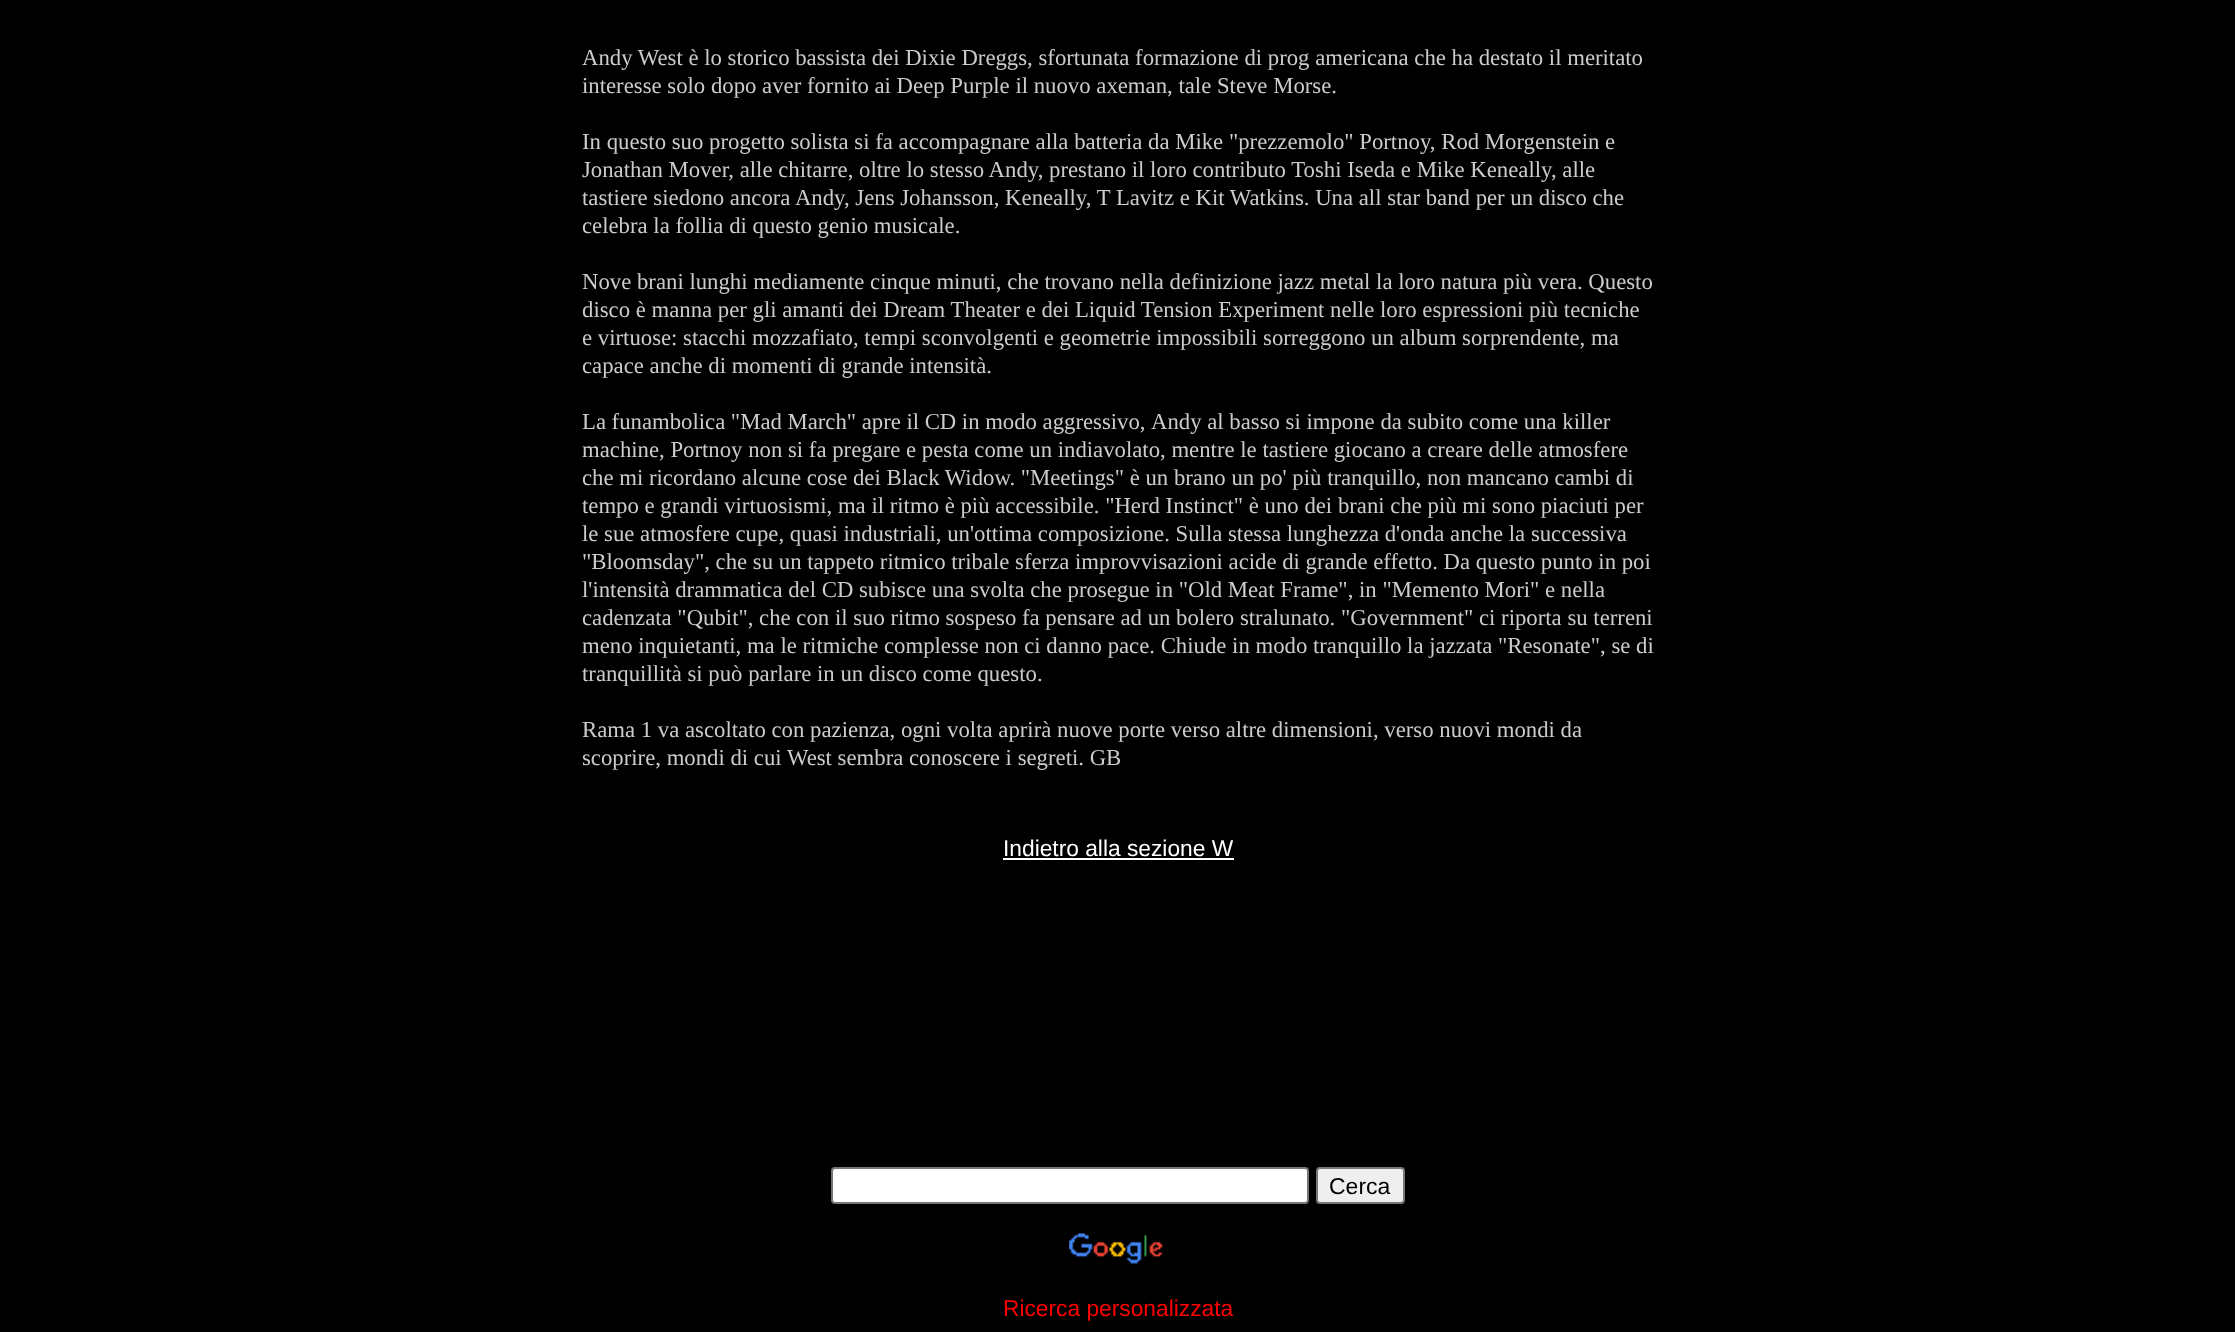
(async () => {
const canvas = document.querySelector("canvas")
canvas.width = 2235
canvas.height = 1332
const c = canvas.getContext("2d")
c.miterLimit = 4
c.fontKerning = "normal"
function T(s,x,y){c.fillText(s,x,y)}
function R(x,y,w,h){c.fillRect(x,y,w,h)}
async function I(src,x,y,w,h){const img=new Image();img.src=src;await img.decode();c.drawImage(img,x,y,w,h)}
c.fillStyle="#000"
R(0,0,2235,1332)
c.font="22.75px Liberation Serif"
c.fillStyle="#ccc"
T("Andy West è lo storico bassista dei Dixie Dreggs, sfortunata formazione di prog americana che ha destato il meritato",582,65)
T("interesse solo dopo aver fornito ai Deep Purple il nuovo axeman, tale Steve Morse.",582,93)
T("In questo suo progetto solista si fa accompagnare alla batteria da Mike \"prezzemolo\" Portnoy, Rod Morgenstein e",582,149)
T("Jonathan Mover, alle chitarre, oltre lo stesso Andy, prestano il loro contributo Toshi Iseda e Mike Keneally, alle",582,177)
T("tastiere siedono ancora Andy, Jens Johansson, Keneally, T Lavitz e Kit Watkins. Una all star band per un disco che",582,205)
T("celebra la follia di questo genio musicale.",582,233)
T("Nove brani lunghi mediamente cinque minuti, che trovano nella definizione jazz metal la loro natura più vera. Questo",582,289)
T("disco è manna per gli amanti dei Dream Theater e dei Liquid Tension Experiment nelle loro espressioni più tecniche",582,317)
T("e virtuose: stacchi mozzafiato, tempi sconvolgenti e geometrie impossibili sorreggono un album sorprendente, ma",582,345)
T("capace anche di momenti di grande intensità.",582,373)
c.wordSpacing="-0.1px"
T("La funambolica \"Mad March\" apre il CD in modo aggressivo,",582,429)
c.wordSpacing="0px"
T("Andy al basso si impone da subito come una killer",1151,429)
T("machine, Portnoy non si fa pregare e pesta come un indiavolato, mentre le tastiere giocano a creare delle atmosfere",582,457)
T("che mi ricordano alcune cose dei Black Widow. \"Meetings\" è un brano un po' più tranquillo, non mancano cambi di",582,485)
T("tempo e grandi virtuosismi, ma il ritmo è più accessibile. \"Herd Instinct\" è uno dei brani che più mi sono piaciuti per",582,513)
T("le sue atmosfere cupe, quasi industriali, un'ottima composizione. Sulla stessa lunghezza d'onda anche la successiva",582,541)
T("\"Bloomsday\", che su un tappeto ritmico tribale sferza improvvisazioni acide di grande effetto. Da questo punto in poi",582,569)
T("l'intensità drammatica del CD subisce una svolta che prosegue in \"Old Meat Frame\", in \"Memento Mori\" e nella",582,597)
T("cadenzata \"Qubit\", che con il suo ritmo sospeso fa pensare ad un bolero stralunato. \"Government\" ci riporta su terreni",582,625)
T("meno inquietanti, ma le ritmiche complesse non ci danno pace. Chiude in modo tranquillo la jazzata \"Resonate\", se di",582,653)
T("tranquillità si può parlare in un disco come questo.",582,681)
T("Rama 1 va ascoltato con pazienza, ogni volta aprirà nuove porte verso altre dimensioni, verso nuovi mondi da",582,737)
T("scoprire, mondi di cui",582,765)
T("West sembra conoscere i segreti. GB",787,765)
c.font="22.75px Liberation Sans"
c.fillStyle="#fff"
T("Indietro alla sezione W",1003,856)
R(1003,858,231,2)
c.beginPath()
c.roundRect(832,1168,476,35,3)
c.fill()
c.strokeStyle="#767676"
c.lineWidth=2
c.stroke()
c.fillStyle="#efefef"
c.beginPath()
c.roundRect(1317,1168,87,35,3)
c.fill()
c.stroke()
c.font="23px Liberation Sans"
c.fillStyle="#000"
T("Cerca",1329,1194)
await I("1.png",1069,1233,94,31)
c.font="22.75px Liberation Sans"
c.fillStyle="#f00"
T("Ricerca personalizzata",1003,1316)
})()
